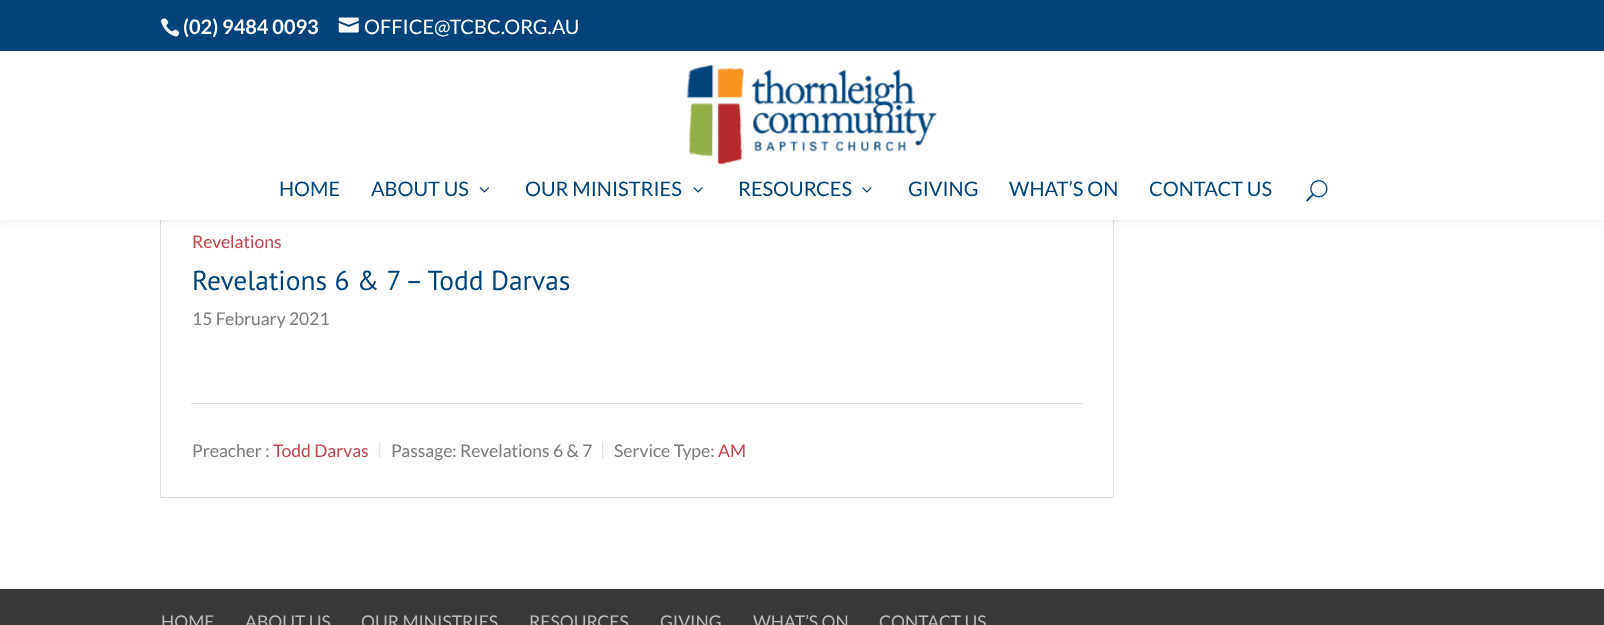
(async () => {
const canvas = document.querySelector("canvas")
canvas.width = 1604
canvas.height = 625
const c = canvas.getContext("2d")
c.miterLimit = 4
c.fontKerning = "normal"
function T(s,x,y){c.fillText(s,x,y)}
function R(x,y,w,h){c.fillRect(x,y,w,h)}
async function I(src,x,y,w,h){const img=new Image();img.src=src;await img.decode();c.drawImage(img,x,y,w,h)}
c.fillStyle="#fff"
R(0,0,1604,625)
c.strokeStyle="#ddd"
c.strokeRect(160.5,195.5,953,302)
c.fillStyle="#0000001a"
c.filter="blur(4.5px)"
c.beginPath()
c.rect(0,51,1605,169)
c.fill()
c.filter="none"
c.fillStyle="#00427a"
R(0,0,1604,51)
await I("1.png",160,18,20,19)
c.font="bold 20px Lato"
c.fillStyle="#fff"
T("(02) 9484 0093",183,34)
await I("2.png",338,17,21,16)
c.font="20px Lato"
T("OFFICE@TCBC.ORG.AU",364,34)
R(0,51,1604,169)
await I("3.png",686,65,251,100)
c.fillStyle="#00427a"
T("HOME",279,196)
T("ABOUT US",371,196)
await I("4.png",479,187,10,6)
T("OUR MINISTRIES",525,196)
await I("5.png",693,187,10,6)
T("RESOURCES",738,196)
await I("6.png",862,187,10,6)
T("GIVING",908,196)
T("WHAT’S ON",1009,196)
T("CONTACT US",1149,196)
await I("7.png",1306,180,22,22)
c.font="17.5px Lato"
c.fillStyle="#c1454a"
T("Revelations",192,248)
c.font="27.5px PT Sans"
c.fillStyle="#00427a"
T("Revelations 6 & 7 – Todd Darvas",192,290)
c.font="17.5px Lato"
c.fillStyle="#7a7a7a"
T("15 February 2021",192,325)
c.fillStyle="#ddd"
R(191,403,892,1)
c.fillStyle="#7a7a7a"
T("Preacher :",192,457)
c.fillStyle="#c1454a"
T("Todd Darvas",273,457)
c.fillStyle="#e1e1e1"
T("|",377,455)
c.fillStyle="#7a7a7a"
T("Passage: Revelations 6 & 7",391,457)
c.fillStyle="#e1e1e1"
T("|",600,455)
c.fillStyle="#7a7a7a"
T("Service Type:",614,457)
c.fillStyle="#c1454a"
T("AM",718,457)
c.fillStyle="#383838"
R(0,589,1604,36)
c.fillStyle="#bbb"
T("HOME",161,628)
T("ABOUT US",245,628)
T("OUR MINISTRIES",361,628)
T("RESOURCES",529,628)
T("GIVING",660,628)
T("WHAT’S ON",753,628)
T("CONTACT US",879,628)
})()
